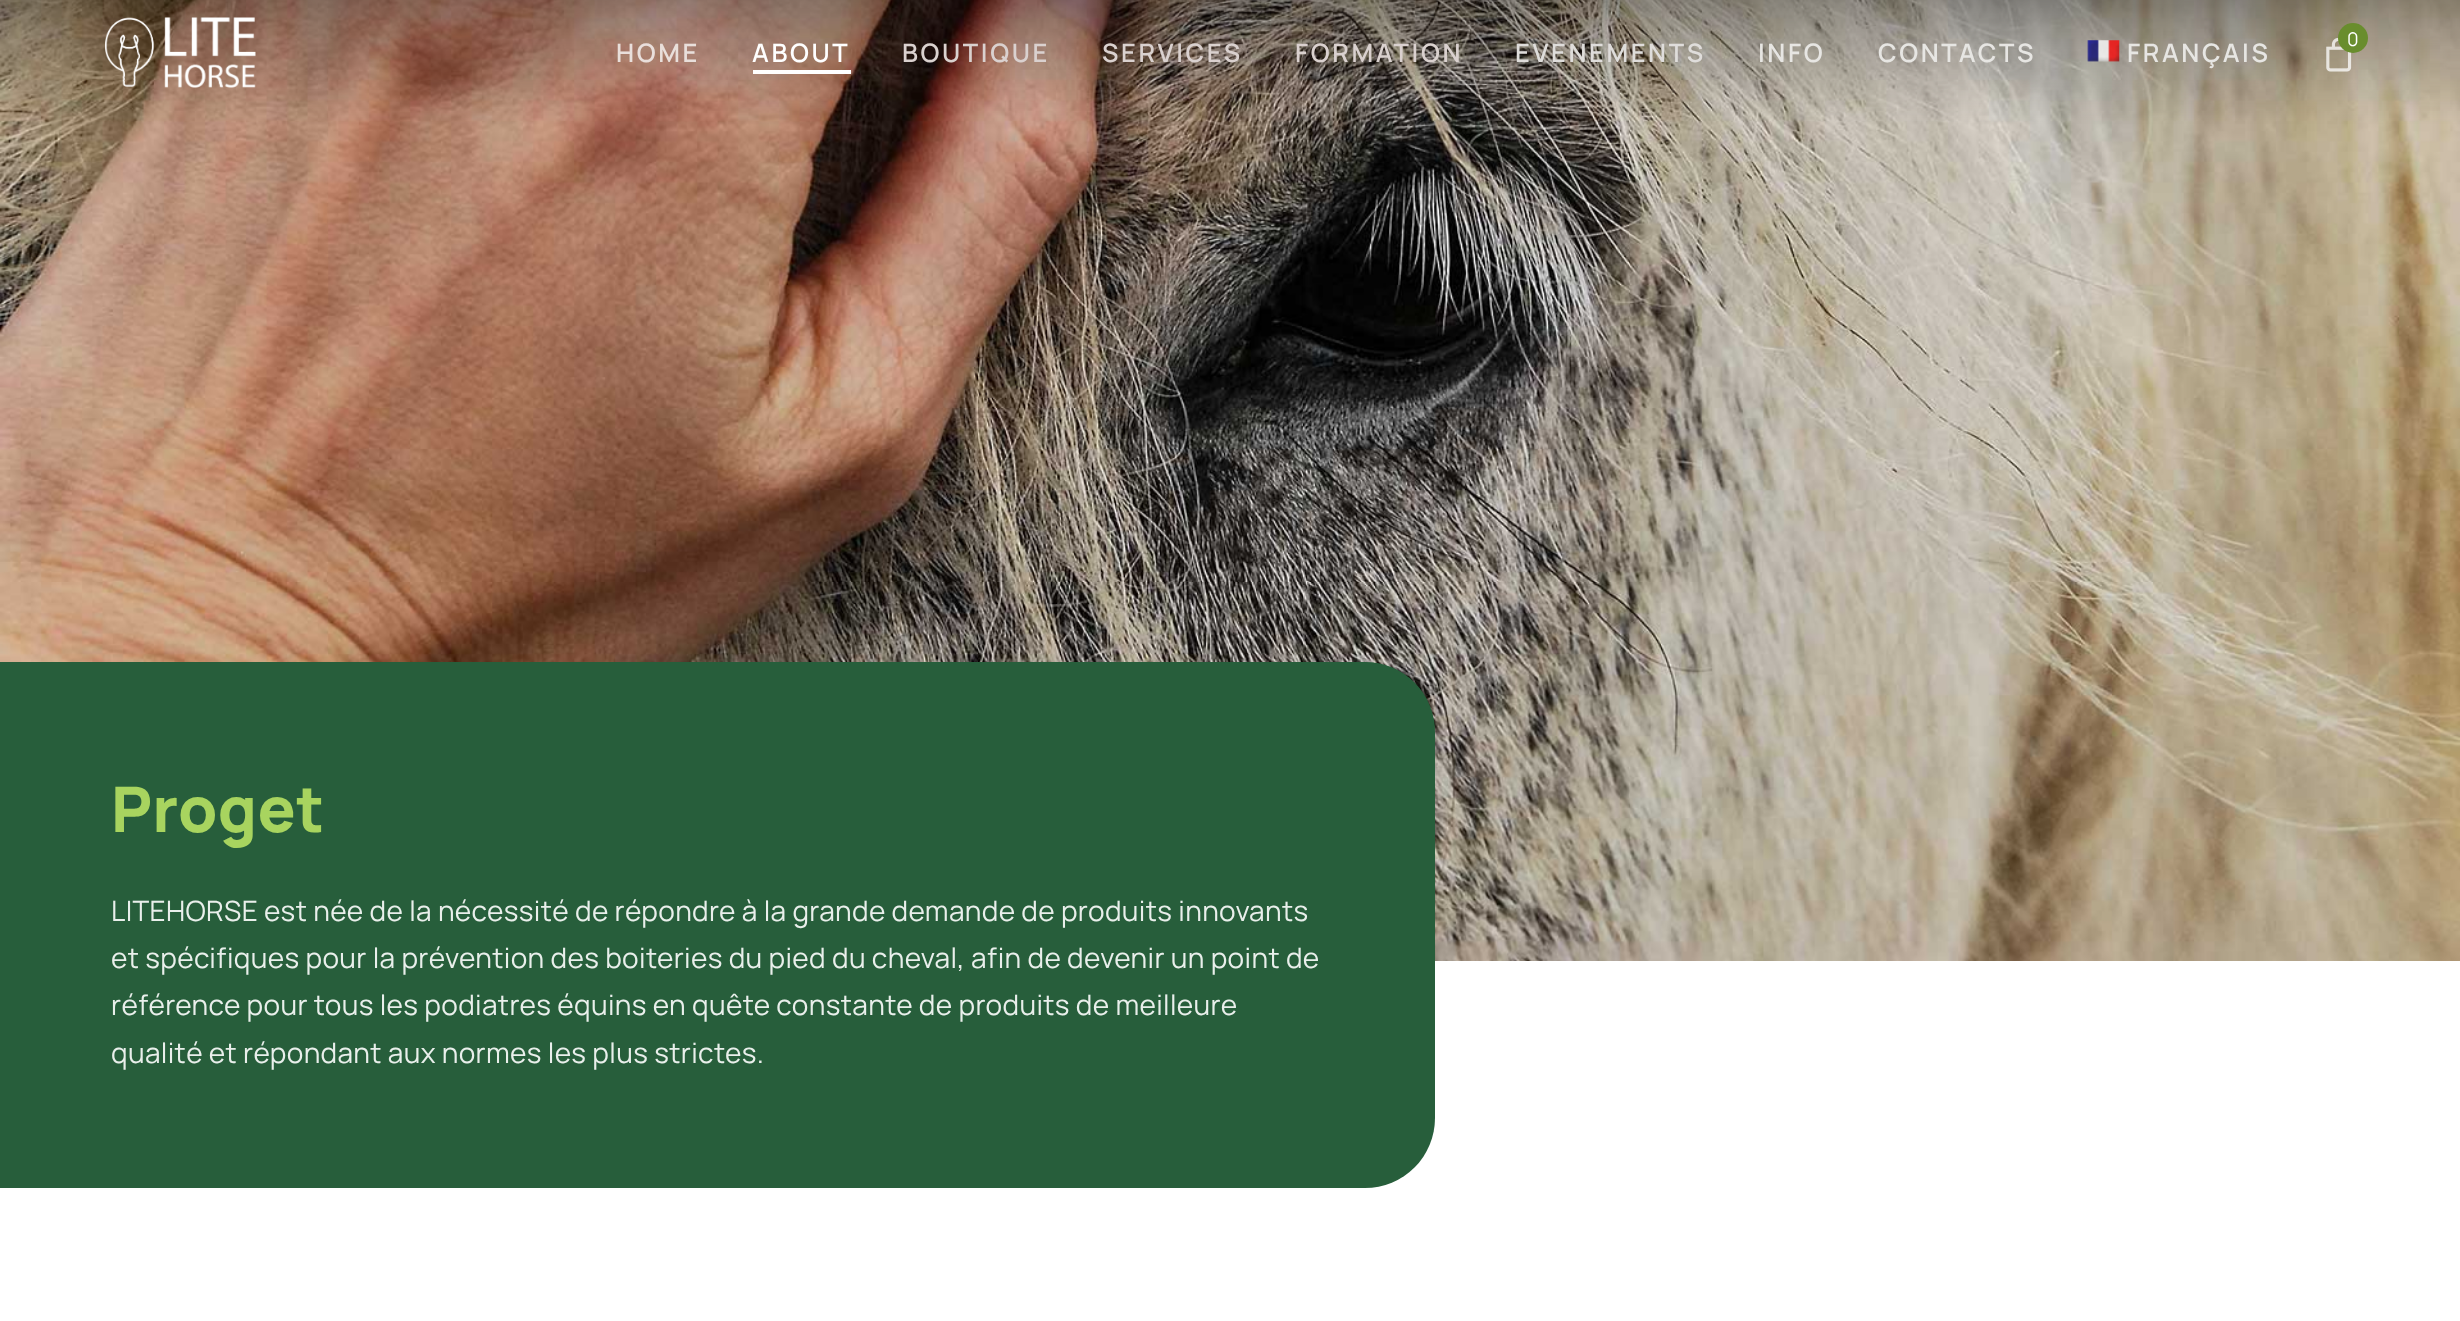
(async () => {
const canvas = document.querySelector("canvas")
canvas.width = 2460
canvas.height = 1321
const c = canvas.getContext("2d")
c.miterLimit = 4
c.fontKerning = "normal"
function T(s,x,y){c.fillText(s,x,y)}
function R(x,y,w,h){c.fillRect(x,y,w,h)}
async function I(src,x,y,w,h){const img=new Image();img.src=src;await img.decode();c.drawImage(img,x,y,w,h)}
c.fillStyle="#fff"
R(0,0,2460,1321)
await I("4.png",0,0,2460,961)
await I("1.png",105,17,151,71)
await I("2.png",2326,37,26,35)
c.fillStyle="#698d2d"
c.beginPath()
c.arc(2353,38,15,0,7)
c.fill()
c.letterSpacing="0.35px"
c.font="19px Manrope"
c.fillStyle="#fff"
T("0",2347,46)
c.letterSpacing="2.6px"
c.font="600 25.5px Manrope"
c.fillStyle="#e9dfdb"
T("HOME",616,62)
c.fillStyle="#fff"
T("ABOUT",752,62)
R(753,70,98,4)
c.fillStyle="#dad1cf"
T("BOUTIQUE",902,62)
T("SERVICES",1102,62)
T("FORMATION",1295,62)
c.fillStyle="#dfdddb"
T("EVENEMENTS",1515,62)
c.fillStyle="#e7e6e3"
T("INFO",1758,62)
T("CONTACTS",1878,62)
await I("3.png",2087,40,33,22)
T("FRANÇAIS",2127,62)
c.fillStyle="#275e3b"
c.beginPath()
c.roundRect(0,662,1435,526,[0,70,70,0])
c.fill()
c.letterSpacing="0.35px"
c.font="800 63px Manrope"
c.fillStyle="#a8d45f"
T("Proget",111,832)
c.font="28px Manrope"
c.fillStyle="#e9efeb"
T("LITEHORSE est née de la nécessité de répondre à la grande demande de produits innovants",111,921)
T("et spécifiques pour la prévention des boiteries du pied du cheval, afin de devenir un point de",111,968)
T("référence pour tous les podiatres équins en quête constante de produits de meilleure",111,1015)
T("qualité et répondant aux normes les plus strictes.",111,1063)
})()
